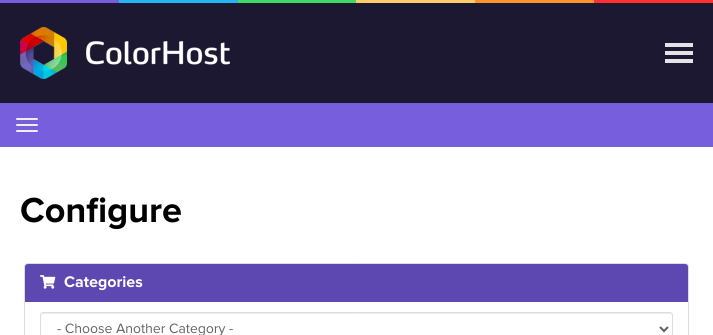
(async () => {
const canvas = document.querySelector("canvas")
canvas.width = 713
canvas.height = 335
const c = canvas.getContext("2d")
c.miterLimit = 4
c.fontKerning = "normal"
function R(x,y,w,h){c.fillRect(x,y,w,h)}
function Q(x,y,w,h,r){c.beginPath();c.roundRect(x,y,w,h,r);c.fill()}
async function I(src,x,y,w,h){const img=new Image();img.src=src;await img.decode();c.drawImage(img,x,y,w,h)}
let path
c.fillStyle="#1c1832"
R(0,0,713,335)
c.fillStyle="#765edc"
R(0,0,119,3)
c.fillStyle="#27b4f6"
R(119,0,119,3)
c.fillStyle="#40d961"
R(238,0,118,3)
c.fillStyle="#ffcd69"
R(356,0,119,3)
c.fillStyle="#ff932e"
R(475,0,119,3)
c.fillStyle="#ff3131"
R(594,0,119,3)
await I("1.png",20,27,210,52)
c.fillStyle="#e4e3e6"
R(665,43,28,4)
R(665,51,28,4)
R(665,59,28,4)
c.fillStyle="#765edc"
R(0,103,713,44)
c.fillStyle="#eee"
Q(16,118,22,2,1)
Q(16,124,22,2,1)
Q(16,130,22,2,1)
c.fillStyle="#fff"
R(0,147,713,188)
await I("2.png",21,197,160,33)
c.beginPath()
c.roundRect(24.5,263.5,664,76,3.5)
c.strokeStyle="#ddd"
c.stroke()
c.fillStyle="#5c48b0"
c.beginPath()
c.roundRect(25,264,663,38,[3,3,0,0])
c.fill()
await I("3.png",40,275,16,14)
await I("4.png",64,276,79,15)
c.fillStyle="#ececec"
path = new Path2D("M43 314h627c1 0 2 1 2 2c0-1 0-3-2-3h-627c-2 0-2 2-2 3c0-1 1-2 2-2z")
c.fill(path)
c.beginPath()
c.roundRect(40.5,312.5,632,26,2.5)
c.stroke()
path = new Path2D("M660 327l4 4l4-4")
c.strokeStyle="#626262"
c.lineWidth=2
c.stroke(path)
await I("5.png",57,323,176,12)
})()
